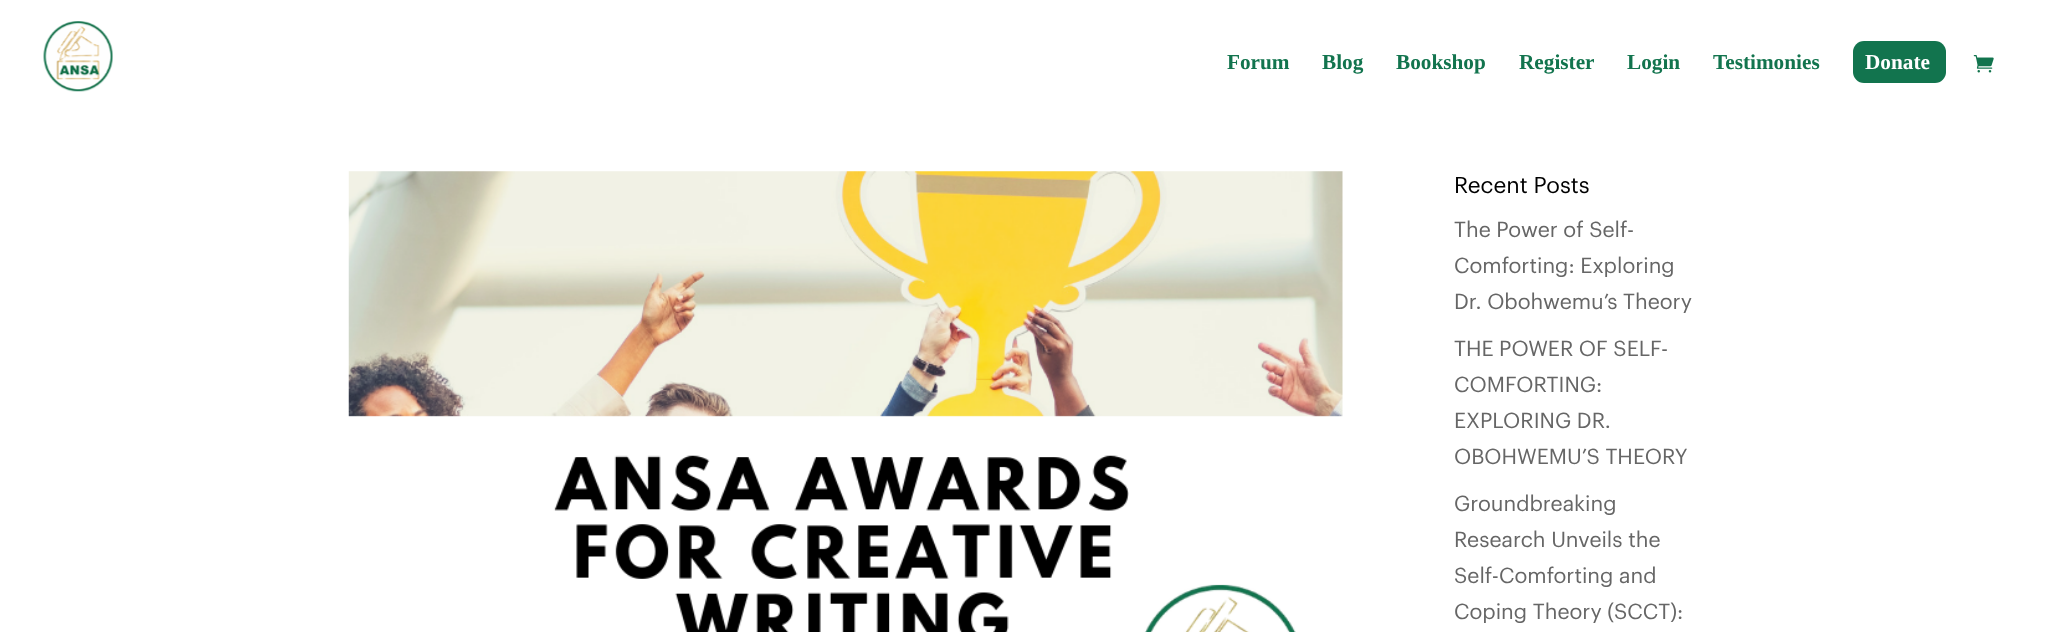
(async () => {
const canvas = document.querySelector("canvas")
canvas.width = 2046
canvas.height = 632
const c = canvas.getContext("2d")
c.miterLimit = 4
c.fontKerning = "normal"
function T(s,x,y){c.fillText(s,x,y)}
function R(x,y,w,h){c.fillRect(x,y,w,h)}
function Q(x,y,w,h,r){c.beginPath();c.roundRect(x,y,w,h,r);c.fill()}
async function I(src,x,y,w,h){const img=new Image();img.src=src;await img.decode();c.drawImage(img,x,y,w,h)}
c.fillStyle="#fff"
R(0,0,2046,632)
await I("1.png",43,21,70,71)
c.font="bold 21.25px Liberation Serif"
c.fillStyle="#12744e"
T("Forum",1227,69)
T("Blog",1322,69)
T("Bookshop",1396,69)
T("Register",1519,69)
T("Login",1627,69)
T("Testimonies",1713,69)
Q(1853,41,93,42,11)
c.fillStyle="#fff"
T("Donate",1865,69)
await I("2.png",1973,55,21,18)
await I("3.png",348,171,995,461)
c.font="22.5px Graphik"
c.fillStyle="#000"
T("Recent Posts",1454,193)
c.font="21.25px Graphik"
c.fillStyle="#666"
T("The Power of Self-",1454,237)
T("Comforting: Exploring",1454,273)
T("Dr. Obohwemu’s Theory",1454,309)
T("THE POWER OF SELF-",1454,356)
T("COMFORTING:",1454,392)
T("EXPLORING DR.",1454,428)
T("OBOHWEMU’S THEORY",1454,464)
T("Groundbreaking",1454,511)
T("Research Unveils the",1454,547)
T("Self-Comforting and",1454,583)
T("Coping Theory (SCCT):",1454,619)
})()
